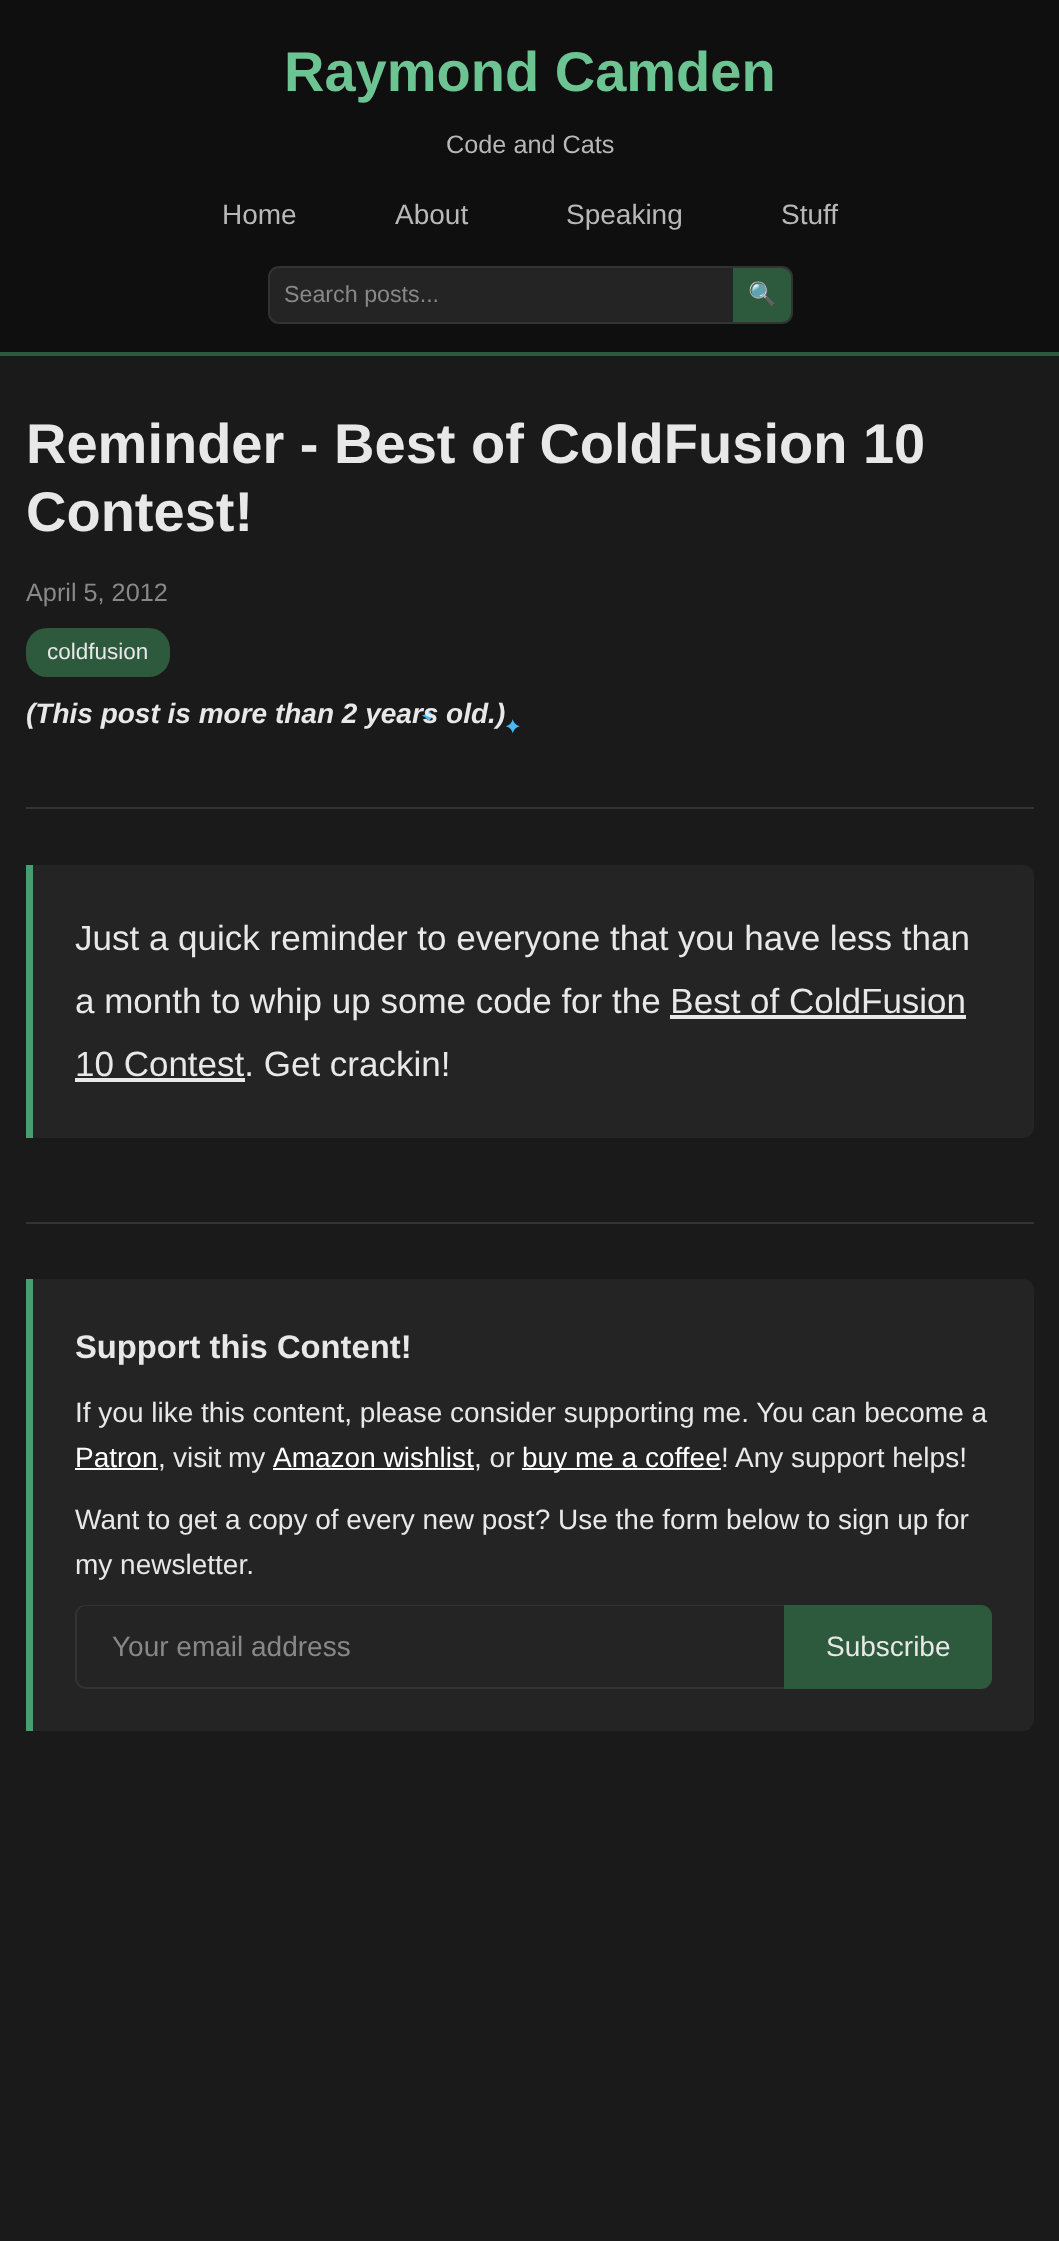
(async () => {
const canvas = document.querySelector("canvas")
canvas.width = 1059
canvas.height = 2241
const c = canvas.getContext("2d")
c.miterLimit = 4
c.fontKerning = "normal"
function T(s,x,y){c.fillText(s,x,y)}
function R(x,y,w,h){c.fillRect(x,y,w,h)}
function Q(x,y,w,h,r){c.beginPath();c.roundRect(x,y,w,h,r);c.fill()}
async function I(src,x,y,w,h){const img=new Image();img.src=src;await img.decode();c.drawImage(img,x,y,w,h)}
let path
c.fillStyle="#1a1a1a"
R(0,0,1059,2241)
c.fillStyle="#0f0f0f"
R(0,0,1059,352)
c.fillStyle="#2d5a3d"
R(0,352,1059,4)
c.font="bold 56px Liberation Sans"
c.fillStyle="#6bc491"
T("Raymond Camden",284,91)
c.font="25.25px Liberation Sans"
c.fillStyle="#b8b8b8"
T("Code and Cats",446,153)
c.font="28px Liberation Sans"
T("Home",222,224)
T("About",395,224)
T("Speaking",566,224)
T("Stuff",781,224)
c.fillStyle="#242424"
c.beginPath()
c.roundRect(269,267,523,56,10)
c.fill()
c.strokeStyle="#333"
c.lineWidth=2
c.stroke()
c.font="23.25px Liberation Sans"
c.fillStyle="#888"
T("Search posts...",284,302)
c.fillStyle="#2d5a3d"
c.beginPath()
c.roundRect(733,268,58,54,[0,9,9,0])
c.fill()
c.font="23.25px Noto Color Emoji"
c.fillStyle="#e8e8e8"
T("🔍",748,302)
c.fillStyle="#333"
R(26,807,1008,2)
c.font="bold 56px Liberation Sans"
c.fillStyle="#e8e8e8"
T("Reminder - Best of ColdFusion 10",26,463)
T("Contest!",26,531)
c.font="25.25px Liberation Sans"
c.fillStyle="#888"
T("April 5, 2012",26,601)
c.fillStyle="#2d5a3d"
Q(26,628,144,49,21)
c.font="22.5px Liberation Sans"
c.fillStyle="#e8e8e8"
T("coldfusion",47,659)
await I("1.png",421,708,15,15)
c.font="italic bold 28px Liberation Sans"
T("(This post is more than 2 years old.)",26,723)
await I("2.png",505,719,15,15)
c.fillStyle="#242424"
c.beginPath()
c.roundRect(26,865,1008,273,[0,11,11,0])
c.fill()
c.fillStyle="#4a9d6f"
R(26,865,7,273)
c.font="35px Liberation Sans"
c.fillStyle="#e8e8e8"
T("Just a quick reminder to everyone that you have less than",75,950)
T("a month to whip up some code for the Best of ColdFusion",75,1013)
T("10 Contest. Get crackin!",75,1076)
R(670,1015,296,4)
R(75,1078,170,4)
c.fillStyle="#333"
R(26,1222,1008,2)
c.fillStyle="#242424"
c.beginPath()
c.roundRect(26,1279,1008,452,[0,11,11,0])
c.fill()
c.fillStyle="#4a9d6f"
R(26,1279,7,452)
c.font="bold 32.75px Liberation Sans"
c.fillStyle="#e8e8e8"
T("Support this Content!",75,1358)
c.font="28px Liberation Sans"
T("If you like this content, please consider supporting me. You can become a",75,1422)
c.fillStyle="#fff"
T("Patron",75,1467)
R(75,1468,83,2)
c.fillStyle="#e8e8e8"
T(",",158,1467)
c.wordSpacing="-1px"
T("visit my",173,1467)
c.wordSpacing="0px"
c.fillStyle="#fff"
T("Amazon wishlist",273,1467)
R(273,1468,201,2)
c.fillStyle="#e8e8e8"
T(", or",474,1467)
c.fillStyle="#fff"
R(522,1468,199,2)
T("buy me a coffee",522,1467)
c.fillStyle="#e8e8e8"
T("! Any support helps!",721,1467)
T("Want to get a copy of every new post? Use the form below to sign up for",75,1529)
T("my newsletter.",75,1574)
c.fillStyle="#333"
path = new Path2D("M86 1605h698v84h-698c-6 0-11-5-11-11v-63c0-6 5-10 11-10zm0 1h698v81h-698c-5 0-9-4-9-9v-63c0-5 4-9 9-9z")
c.fill(path,"evenodd")
c.fillStyle="#888"
T("Your email address",112,1656)
c.fillStyle="#2d5a3d"
c.beginPath()
c.roundRect(784,1605,208,84,[0,11,11,0])
c.fill()
c.fillStyle="#e8e8e8"
T("Subscribe",826,1656)
})()
